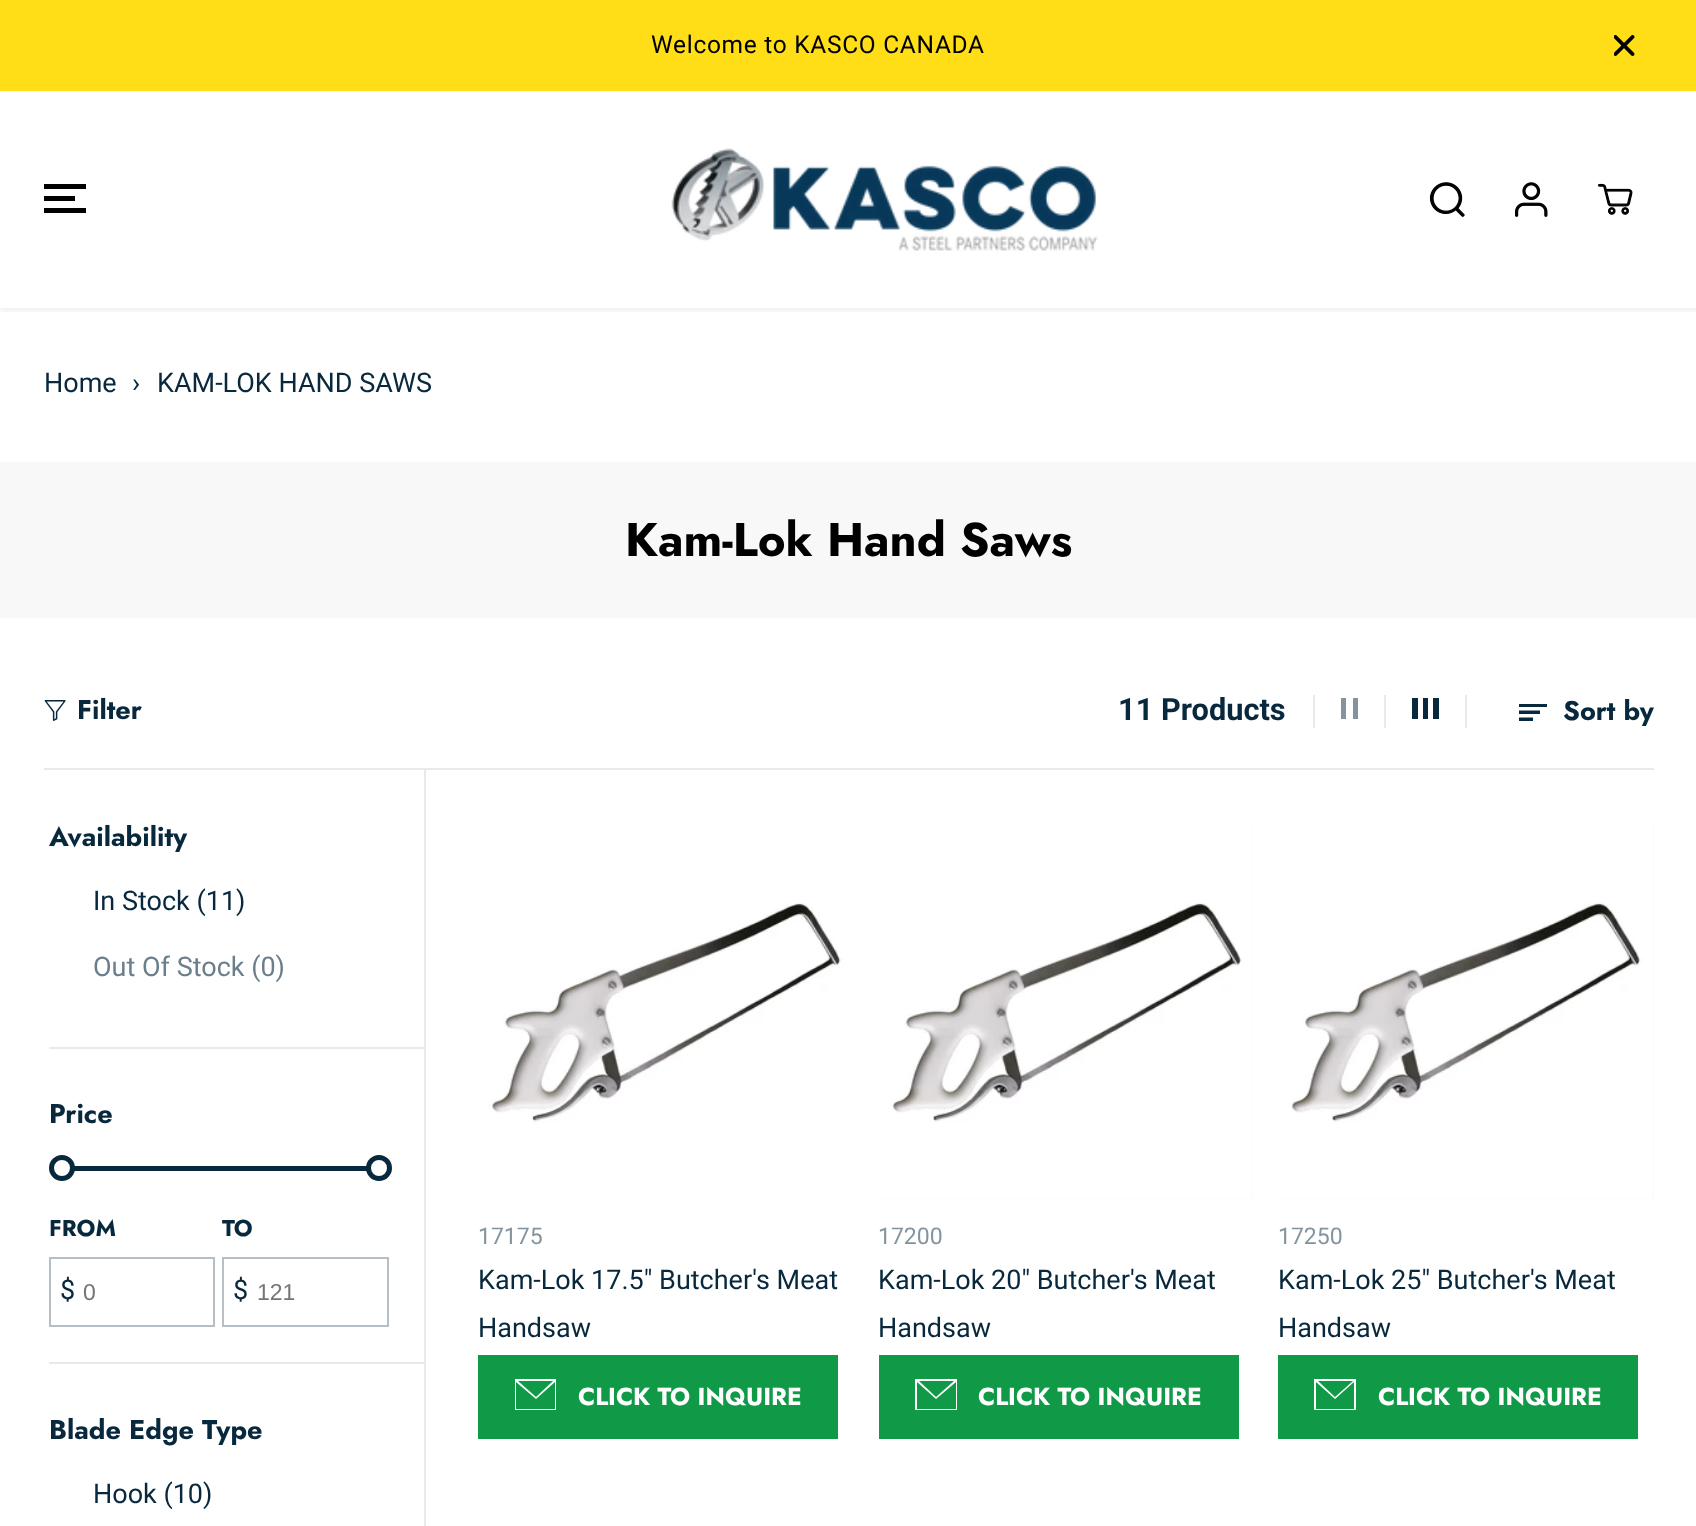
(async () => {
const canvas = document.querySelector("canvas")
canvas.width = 1696
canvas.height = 1526
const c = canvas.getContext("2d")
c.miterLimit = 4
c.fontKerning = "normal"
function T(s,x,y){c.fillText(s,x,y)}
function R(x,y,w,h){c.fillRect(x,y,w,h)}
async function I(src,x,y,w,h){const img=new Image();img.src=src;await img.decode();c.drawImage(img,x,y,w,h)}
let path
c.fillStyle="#fff"
R(0,0,1696,1526)
c.fillStyle="#ffde17"
R(0,0,1696,91)
c.letterSpacing="0.7px"
c.font="24.5px Roboto"
c.fillStyle="#000"
T("Welcome to KASCO CANADA",651,53)
await I("1.png",1614,35,21,21)
c.save()
c.beginPath()
c.rect(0,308,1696,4)
c.clip()
c.fillStyle="#0000000d"
c.filter="blur(2px)"
c.beginPath()
c.rect(0,95,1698,217)
c.fill()
c.filter="none"
c.restore()
R(44,196,31,5)
R(44,184,42,5)
R(44,208,42,5)
await I("2.png",671,148,427,103)
await I("3.png",1429,182,36,35)
await I("4.png",1515,182,33,35)
await I("5.png",1597,183,36,32)
c.letterSpacing="0px"
c.font="27px Roboto"
c.fillStyle="#08283d"
T("Home",44,392)
T("›",132,392)
T("KAM-LOK HAND SAWS",157,392)
c.fillStyle="#f8f8f8"
R(0,462,1696,156)
c.font="bold 47.25px Jost"
c.fillStyle="#000"
T("Kam-Lok Hand Saws",625,556)
c.fillStyle="#e6eaec"
R(44,768,1610,2)
await I("6.png",44,700,22,21)
c.font="bold 27px Jost"
c.fillStyle="#08283d"
T("Filter",77,719)
c.font="bold 30.75px Roboto"
T("11 Products",1118,720)
c.fillStyle="#e6eaec"
R(1384,695,2,33)
R(1313,695,2,33)
c.fillStyle="#84949e"
R(1341,698,5,21)
R(1353,698,5,21)
c.fillStyle="#e6eaec"
R(1465,695,2,33)
c.fillStyle="#08283d"
R(1412,698,6,21)
R(1423,698,5,21)
R(1433,698,6,21)
await I("7.png",1519,704,28,17)
c.font="bold 27px Jost"
T("Sort by",1563,720)
c.fillStyle="#e6eaec"
R(424,770,2,756)
R(49,1047,375,2)
c.fillStyle="#08283d"
T("Availability",49,846)
c.font="27px Roboto"
T("In Stock (11)",93,910)
c.fillStyle="#6b7e8b"
T("Out Of Stock (0)",93,976)
c.fillStyle="#e6eaec"
R(49,1362,375,2)
c.font="bold 27px Jost"
c.fillStyle="#08283d"
T("Price",49,1123)
R(74,1166,293,5)
c.fillStyle="#fff"
c.beginPath()
c.arc(62,1168,10.5,0,7)
c.fill()
c.strokeStyle="#08283d"
c.lineWidth=5
c.stroke()
c.beginPath()
c.arc(379,1168,10.5,0,7)
c.fill()
c.stroke()
c.font="bold 23px Jost"
c.fillStyle="#08283d"
T("FROM",49,1236)
c.strokeStyle="#b5bfc5"
c.lineWidth=2
c.strokeRect(50,1258,164,68)
c.font="27px Roboto"
T("$",60,1299)
c.font="23px Liberation Sans"
c.fillStyle="#757575"
T("0",83,1300)
c.font="bold 23px Jost"
c.fillStyle="#08283d"
T("TO",222,1236)
c.strokeRect(223,1258,165,68)
c.font="27px Roboto"
T("$",233,1299)
c.font="23px Liberation Sans"
c.fillStyle="#757575"
T("121",257,1300)
c.font="bold 27px Jost"
c.fillStyle="#08283d"
T("Blade Edge Type",49,1439)
c.font="27px Roboto"
T("Hook (10)",93,1503)
await I("8.png",478,823,376,376)
c.font="23px Roboto"
c.fillStyle="#84949e"
T("17175",478,1244)
c.font="27px Roboto"
c.fillStyle="#08283d"
T("Kam-Lok 17.5\" Butcher's Meat",478,1289)
T("Handsaw",478,1337)
c.fillStyle="#109a48"
R(478,1355,360,84)
c.save()
c.beginPath()
c.rect(515,1374,49,42)
c.clip()
c.fillStyle="#fff"
path = new Path2D("M556 1410h-42v-31h42zm-40-28v27h39v-27l-19 17zm37-1h-35l18 16z")
c.fill(path,"evenodd")
c.restore()
c.font="bold 24.5px Jost"
c.fillStyle="#fff"
T("CLICK TO INQUIRE",578,1405)
c.fillStyle="#eee"
R(879,823,374,376)
await I("9.png",879,823,374,376)
c.font="23px Roboto"
c.fillStyle="#84949e"
T("17200",878,1244)
c.font="27px Roboto"
c.fillStyle="#08283d"
T("Kam-Lok 20\" Butcher's Meat",878,1289)
T("Handsaw",878,1337)
c.fillStyle="#109a48"
R(879,1355,360,84)
c.fillStyle="#fff"
path = new Path2D("M957 1410h-42v-31h42zm-40-28v27h39v-27l-20 17zm37-1h-35l17 16z")
c.fill(path,"evenodd")
c.font="bold 24.5px Jost"
T("CLICK TO INQUIRE",978,1405)
c.fillStyle="#eee"
R(1278,823,376,376)
await I("10.png",1278,823,376,376)
c.font="23px Roboto"
c.fillStyle="#84949e"
T("17250",1278,1244)
c.font="27px Roboto"
c.fillStyle="#08283d"
T("Kam-Lok 25\" Butcher's Meat",1278,1289)
T("Handsaw",1278,1337)
c.fillStyle="#109a48"
R(1278,1355,360,84)
c.fillStyle="#fff"
path = new Path2D("M1356 1410h-42v-31h42zm-40-28v27h38v-27l-19 17zm37-1h-35l17 16z")
c.fill(path,"evenodd")
c.font="bold 24.5px Jost"
T("CLICK TO INQUIRE",1378,1405)
})()
